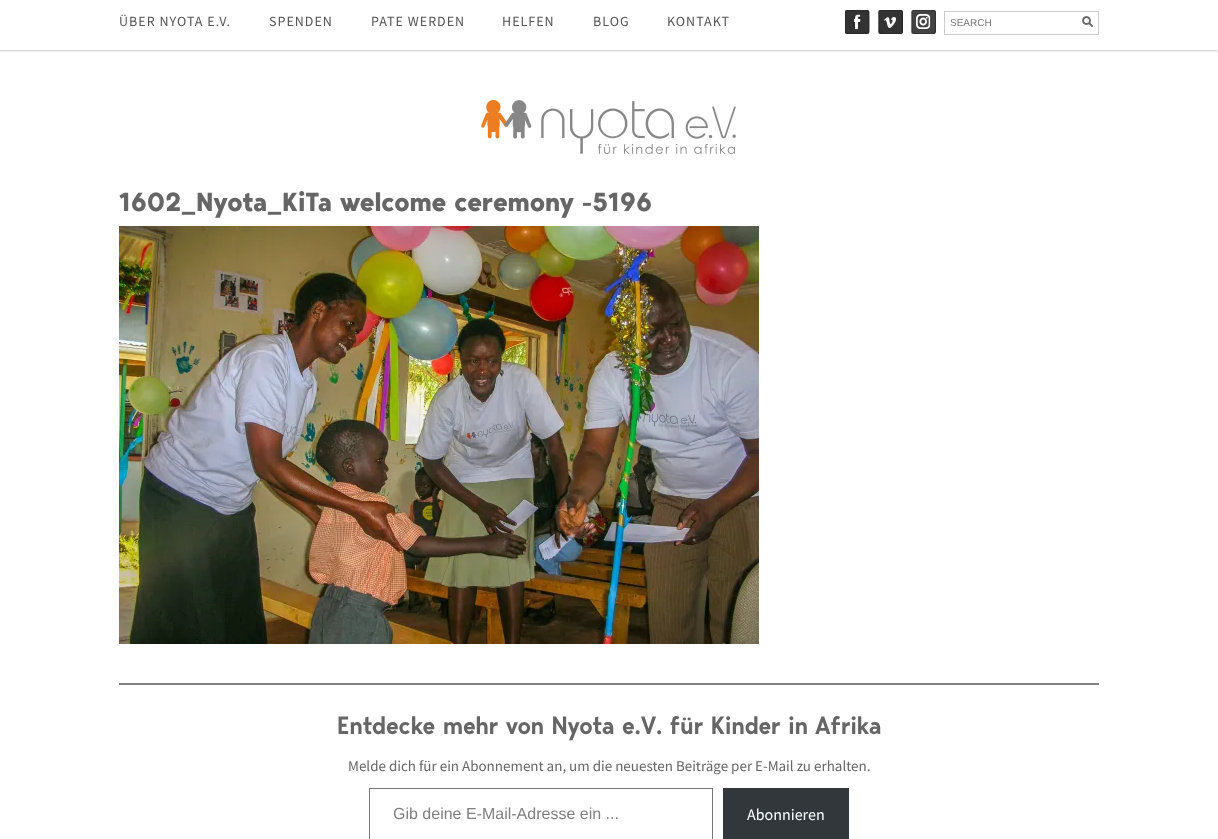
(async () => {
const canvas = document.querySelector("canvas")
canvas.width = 1218
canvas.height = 839
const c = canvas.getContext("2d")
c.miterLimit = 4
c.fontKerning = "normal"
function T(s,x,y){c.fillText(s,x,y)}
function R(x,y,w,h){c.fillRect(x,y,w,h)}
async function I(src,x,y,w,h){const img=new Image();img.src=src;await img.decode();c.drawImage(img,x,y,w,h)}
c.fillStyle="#fff"
R(0,0,1218,839)
c.save()
c.beginPath()
c.rect(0,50,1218,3)
c.clip()
c.fillStyle="#ccc"
c.filter="blur(1px)"
c.beginPath()
c.rect(-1,-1,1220,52)
c.fill()
c.filter="none"
c.restore()
c.letterSpacing="1px"
c.font="14px Source Sans Pro"
c.fillStyle="#555"
T("ÜBER NYOTA E.V.",119,26)
T("SPENDEN",269,26)
T("PATE WERDEN",371,26)
T("HELFEN",502,26)
T("BLOG",593,26)
T("KONTAKT",667,26)
await I("1.png",845,10,25,24)
await I("2.png",878,10,25,24)
await I("3.png",911,10,25,24)
c.strokeStyle="#ccc"
c.strokeRect(944.5,11.5,154,23)
c.letterSpacing="0px"
c.font="10px Liberation Sans"
c.fillStyle="#757575"
T("SEARCH",950,26)
await I("4.png",1082,16,11,11)
await I("5.png",481,100,255,54)
c.font="bold 26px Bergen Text"
c.fillStyle="#666"
T("1602_Nyota_KiTa welcome ceremony -5196",119,211)
await I("6.png",119,226,640,418)
c.fillStyle="#808080"
R(119,683,980,2)
c.font="600 24.75px Bergen Text"
c.fillStyle="#666"
T("Entdecke mehr von Nyota e.V. für Kinder in Afrika",337,734)
c.font="15px Source Sans Pro"
T("Melde dich für ein Abonnement an, um die neuesten Beiträge per E-Mail zu erhalten.",348,771)
c.strokeStyle="#767676"
c.strokeRect(369.5,788.5,343,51)
c.font="16px Liberation Sans"
c.fillStyle="#808080"
T("Gib deine E-Mail-Adresse ein ...",393,819)
c.fillStyle="#32373c"
R(723,788,126,51)
c.font="16px Source Sans Pro"
c.fillStyle="#fff"
T("Abonnieren",747,820)
})()
